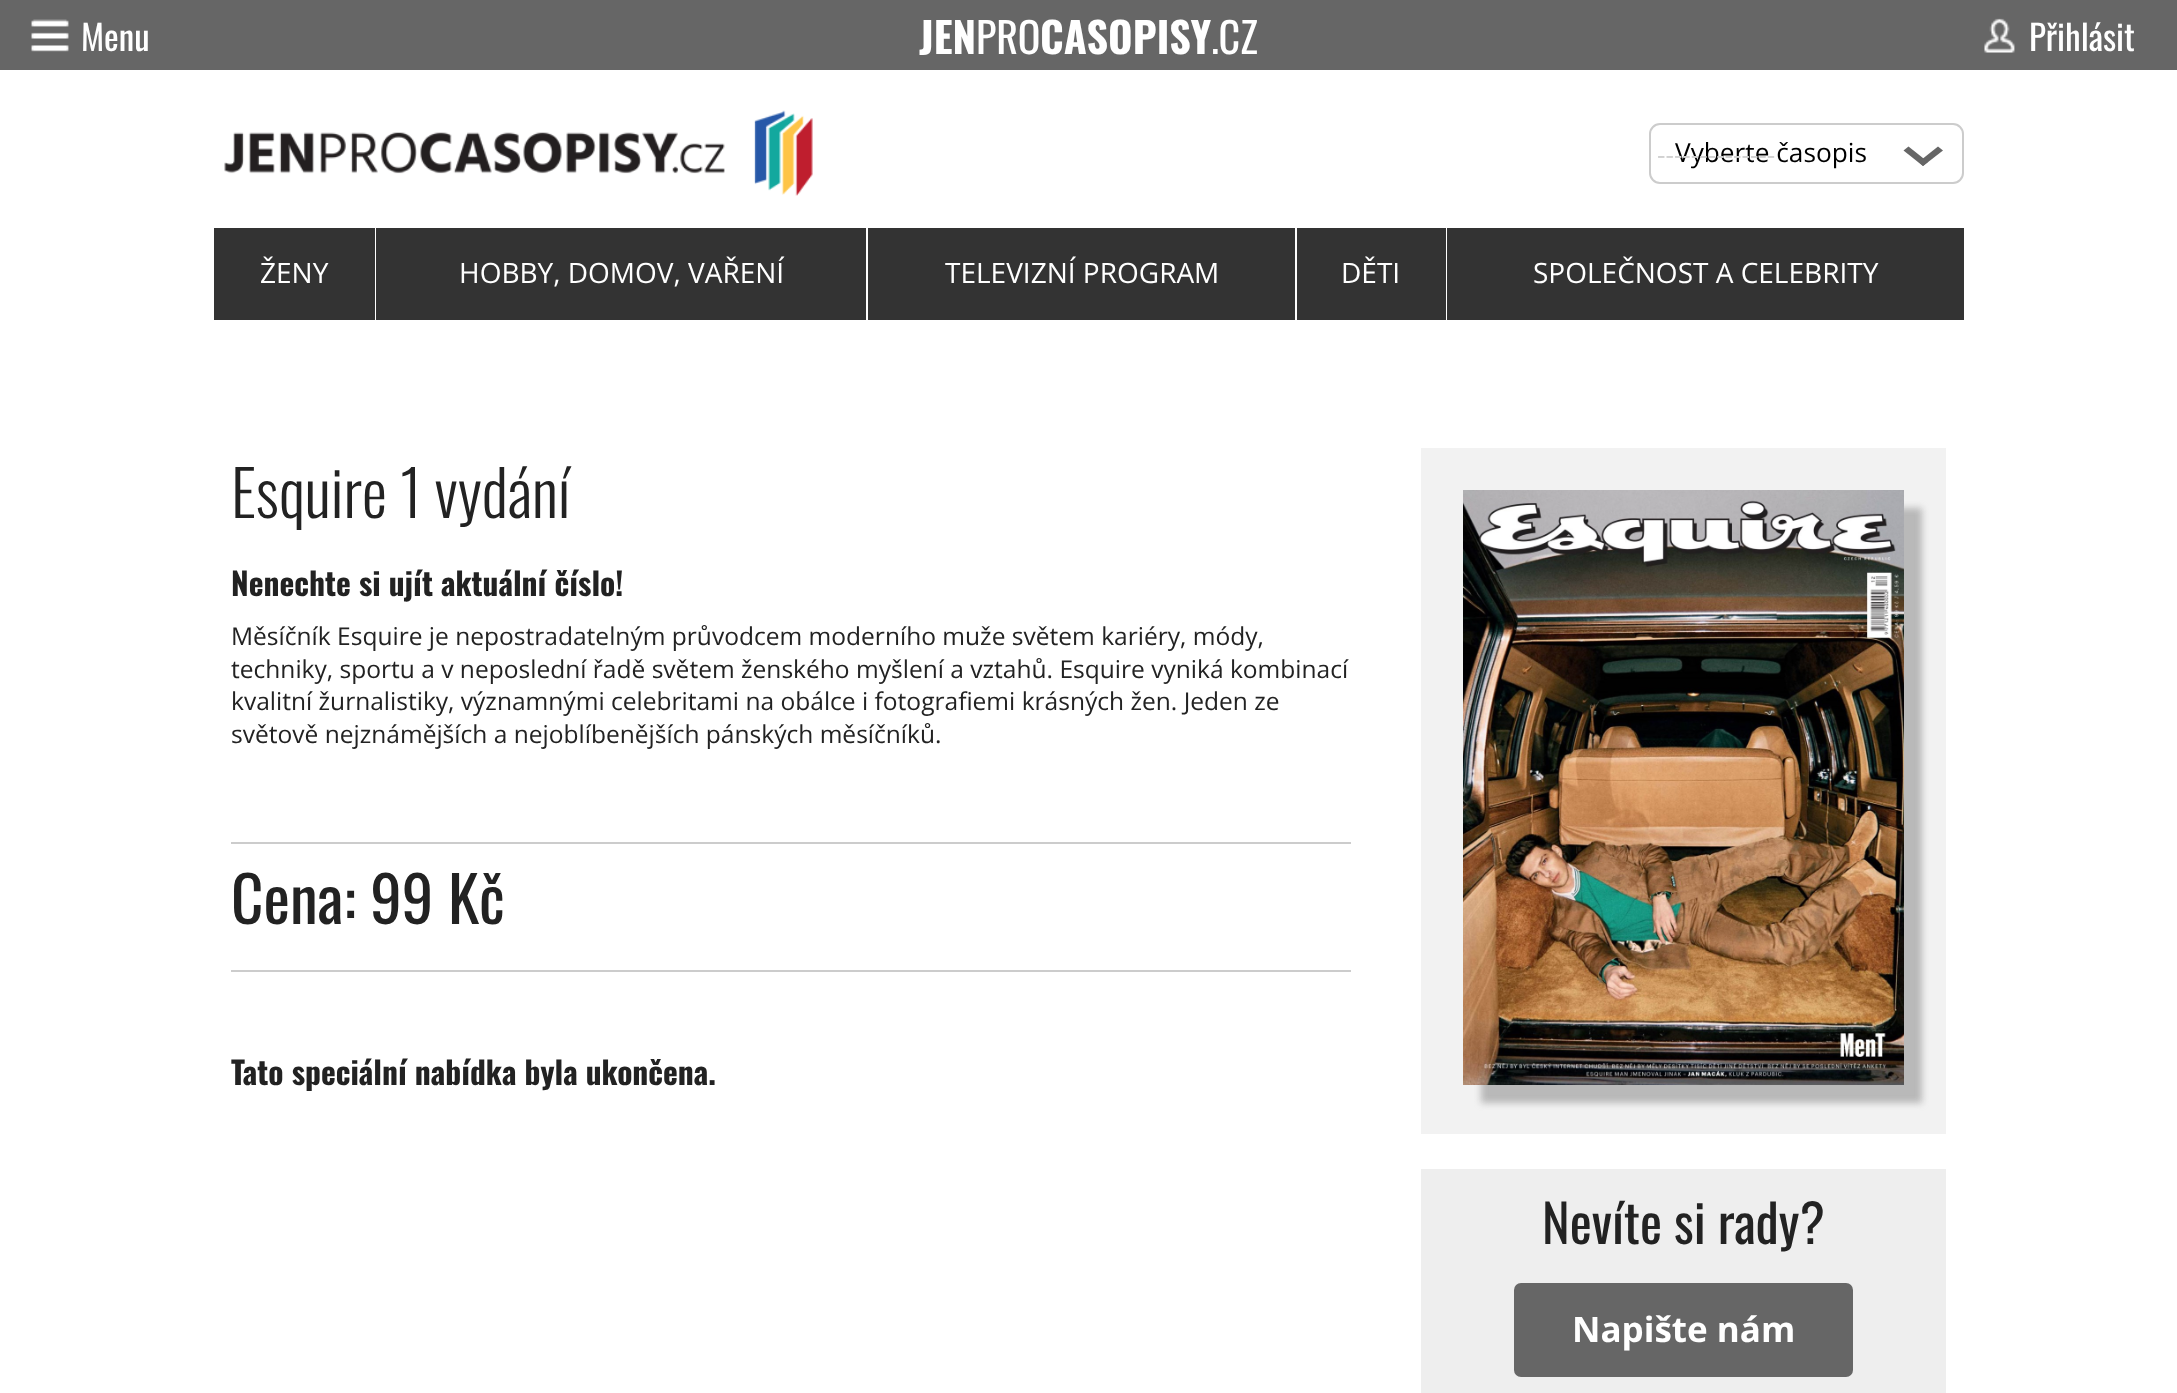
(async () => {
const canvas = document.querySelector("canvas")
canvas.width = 2177
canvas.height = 1393
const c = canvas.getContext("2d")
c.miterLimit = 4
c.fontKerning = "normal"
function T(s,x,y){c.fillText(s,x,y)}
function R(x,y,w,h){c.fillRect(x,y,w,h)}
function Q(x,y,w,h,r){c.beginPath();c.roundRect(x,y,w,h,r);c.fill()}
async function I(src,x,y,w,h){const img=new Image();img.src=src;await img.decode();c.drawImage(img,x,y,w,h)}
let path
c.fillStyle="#fff"
R(0,0,2177,1393)
c.fillStyle="#666"
R(0,0,2177,70)
c.font="bold 42px Oswald"
c.fillStyle="#fff"
T("JEN",919,54)
c.font="42px Oswald"
T("PRO",976,54)
c.font="bold 42px Oswald"
T("CASOPISY",1040,54)
c.font="42px Oswald"
T(".CZ",1211,54)
await I("1.png",31,19,38,33)
c.font="35px Oswald"
T("Menu",81,51)
await I("2.png",1984,18,31,35)
T("Přihlásit",2029,51)
await I("3.png",224,110,589,86)
c.beginPath()
c.roundRect(1650,124,313,59,10)
c.strokeStyle="#ccc"
c.lineWidth=2
c.stroke()
c.font="26.25px Open Sans"
c.fillStyle="#000"
T("Vyberte časopis",1675,162)
c.fillStyle="#d1d1d1"
T("--------------",1657,164)
c.fillStyle="#666"
path = new Path2D("M1938 146.5l5 4l-20 15.5l-4.5-4z")
c.fill(path)
path = new Path2D("M1908.5 146.5l19.5 15.5l-5 4l-19.5-15.5z")
c.fill(path)
c.fillStyle="#333"
R(214,228,161,92)
c.font="28px Open Sans"
c.fillStyle="#fff"
T("ŽENY",260,283)
c.fillStyle="#333"
R(376,228,490,92)
c.fillStyle="#fff"
T("HOBBY, DOMOV, VAŘENÍ",459,283)
c.fillStyle="#333"
R(868,228,427,92)
c.fillStyle="#fff"
T("TELEVIZNÍ PROGRAM",945,283)
c.fillStyle="#333"
R(1297,228,149,92)
c.fillStyle="#fff"
T("DĚTI",1341,283)
c.fillStyle="#333"
R(1447,228,517,92)
c.fillStyle="#fff"
T("SPOLEČNOST A CELEBRITY",1533,283)
c.font="300 63px Oswald"
c.fillStyle="#222"
T("Esquire 1 vydání",231,518)
c.font="bold 31.5px Oswald"
T("Nenechte si ujít aktuální číslo!",231,596)
c.font="24.55px Open Sans"
T("Měsíčník Esquire je nepostradatelným průvodcem moderního muže světem kariéry, módy,",231,645)
T("techniky, sportu a v neposlední řadě světem ženského myšlení a vztahů. Esquire vyniká kombinací",231,678)
T("kvalitní žurnalistiky, významnými celebritami na obálce i fotografiemi krásných žen. Jeden ze",231,710)
T("světově nejznámějších a nejoblíbenějších pánských měsíčníků.",231,743)
c.fillStyle="#ccc"
R(231,842,1120,2)
c.font="63px Oswald"
c.fillStyle="#222"
T("Cena: 99 Kč",231,924)
c.fillStyle="#ccc"
R(231,970,1120,2)
c.font="bold 31.5px Oswald"
c.fillStyle="#222"
T("Tato speciální nabídka byla ukončena.",231,1085)
c.fillStyle="#f2f2f2"
R(1421,448,525,686)
c.fillStyle="#80808080"
c.filter="blur(3.5px)"
c.beginPath()
c.rect(1481,508,441,595)
c.fill()
c.filter="none"
await I("4.png",1463,490,441,595)
c.fillStyle="#eee"
R(1421,1169,525,224)
c.font="52.5px Oswald"
c.fillStyle="#222"
T("Nevíte si rady?",1542,1244)
c.fillStyle="#666"
Q(1514,1283,339,94,7)
c.font="bold 35px Open Sans"
c.fillStyle="#fff"
T("Napište nám",1572,1342)
})()
